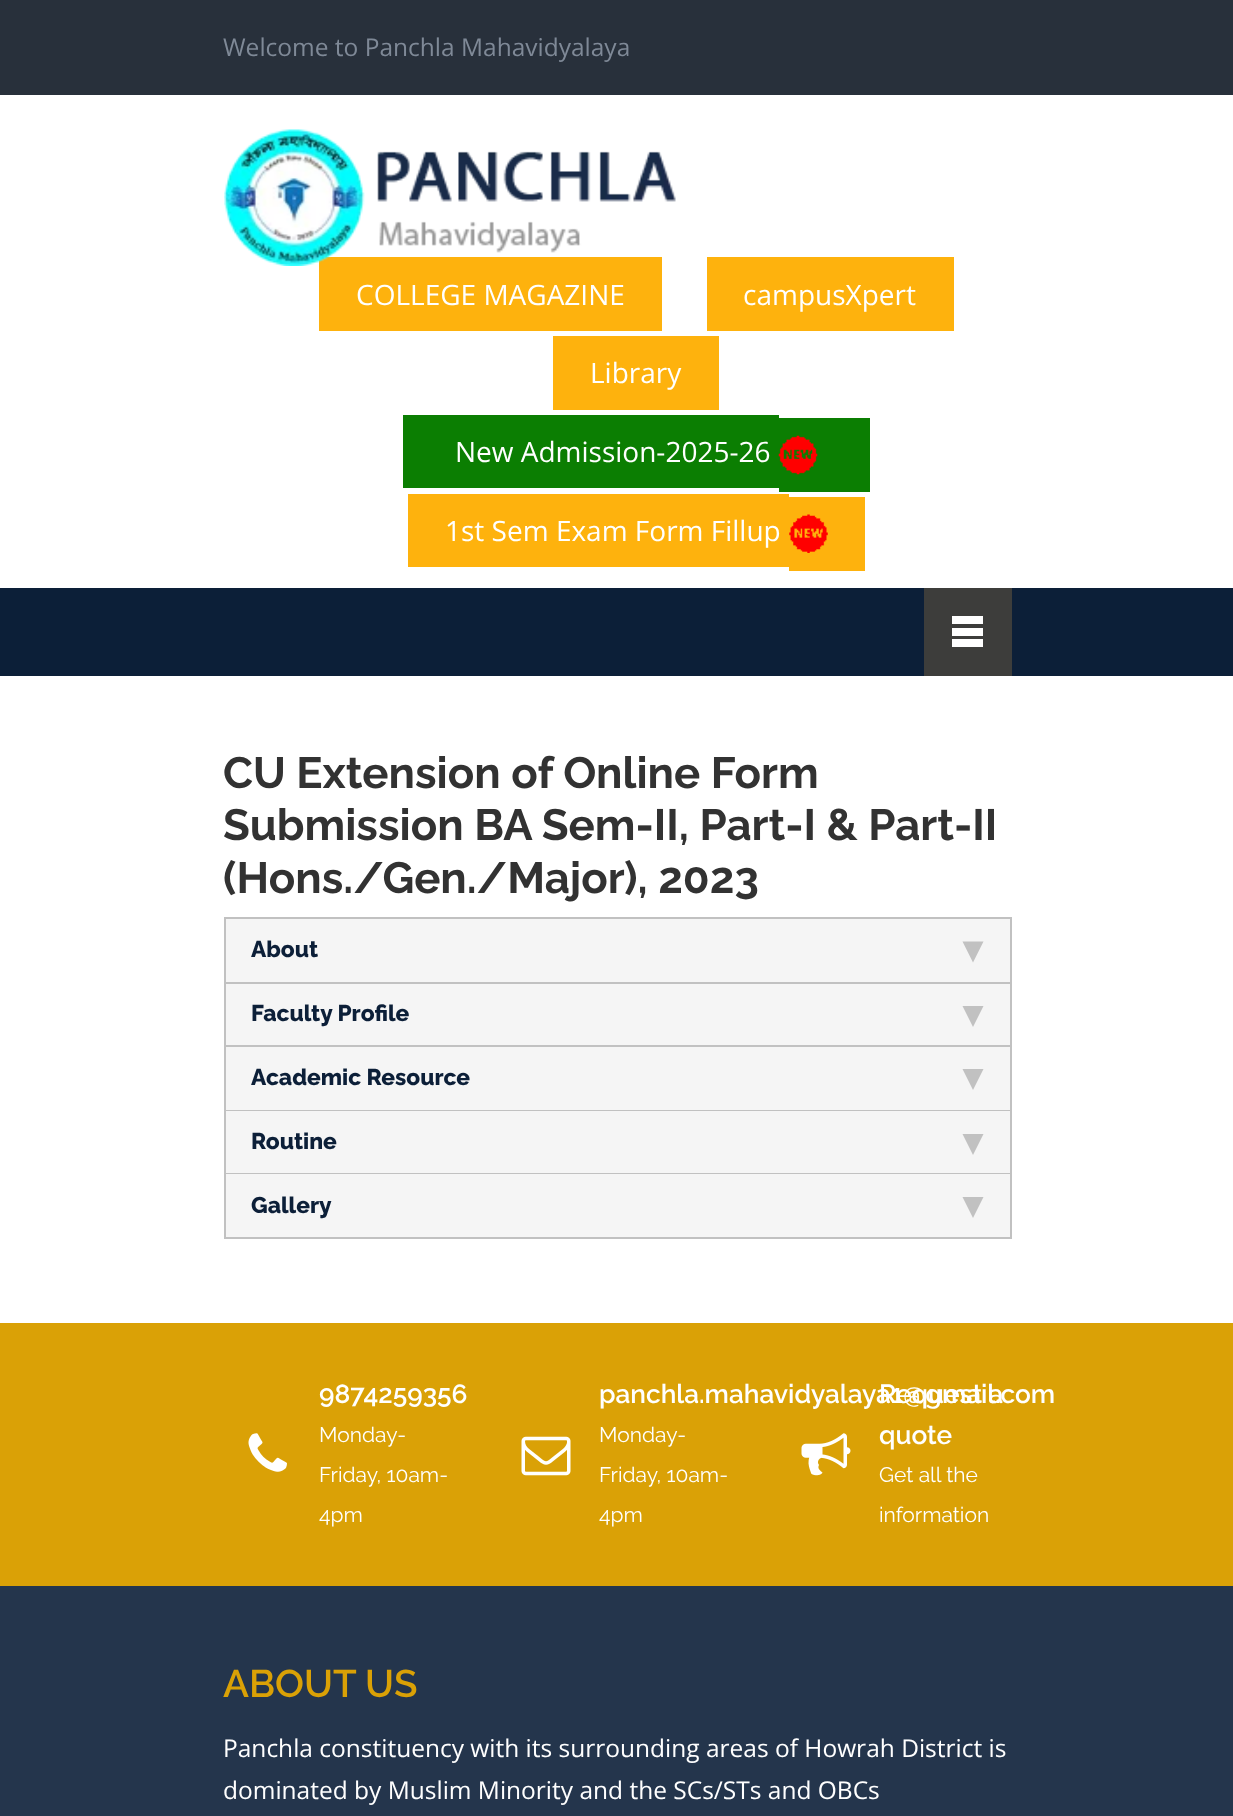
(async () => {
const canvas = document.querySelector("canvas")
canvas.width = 1233
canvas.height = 1816
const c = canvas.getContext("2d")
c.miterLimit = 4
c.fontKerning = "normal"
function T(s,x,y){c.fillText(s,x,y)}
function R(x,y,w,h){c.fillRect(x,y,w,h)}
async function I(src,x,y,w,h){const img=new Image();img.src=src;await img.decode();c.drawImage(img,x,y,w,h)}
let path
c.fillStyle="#fff"
R(0,0,1233,1816)
c.fillStyle="#28303b"
R(0,0,1233,95)
c.font="24.5px Open Sans"
c.fillStyle="#7f8997"
T("Welcome to Panchla Mahavidyalaya",223,56)
c.fillStyle="#feb20d"
R(319,257,343,74)
await I("1.png",224,129,452,137)
c.font="28px Open Sans"
c.fillStyle="#fff"
T("COLLEGE MAGAZINE",356,305)
c.fillStyle="#feb20d"
R(707,257,247,74)
c.fillStyle="#fff"
T("campusXpert",743,305)
c.fillStyle="#feb20d"
R(553,336,166,74)
c.fillStyle="#fff"
T("Library",590,383)
c.fillStyle="#0b7e02"
R(403,415,376,73)
c.fillStyle="#fff"
T("New Admission-2025-26",455,462)
c.fillStyle="#0b7e02"
R(779,418,91,74)
await I("2.png",778,435,40,40)
c.fillStyle="#feb20d"
R(408,494,381,73)
c.fillStyle="#fff"
T("1st Sem Exam Form Fillup",445,541)
c.fillStyle="#feb20d"
R(789,497,76,74)
await I("3.png",789,514,39,39)
c.fillStyle="#0c1f38"
R(0,588,1233,88)
c.fillStyle="#3d3d3b"
R(924,588,88,88)
c.fillStyle="#fff"
R(952,616,31,8)
R(952,628,31,8)
R(952,639,31,8)
c.font="bold 43.75px Raleway"
c.fillStyle="#323232"
T("CU Extension of Online Form",223,788)
T("Submission BA Sem-II, Part-I & Part-II",223,840)
T("(Hons./Gen./Major), 2023",223,893)
c.fillStyle="#f5f5f5"
c.beginPath()
c.rect(225,918,786,65)
c.fill()
c.strokeStyle="#c1c1c1"
c.lineWidth=2
c.stroke()
c.font="800 22.75px Raleway"
c.fillStyle="#0c1f38"
T("About",251,957)
c.fillStyle="#c1c1c1"
path = new Path2D("M962.5 941.5h21l-10.5 21z")
c.fill(path)
c.fillStyle="#f5f5f5"
R(226,984,784,61)
c.fillStyle="#c1c1c1"
R(1010,984,2,255)
R(224,1045,788,2)
R(224,984,2,63)
c.fillStyle="#0c1f38"
T("Faculty Profile",251,1021)
c.fillStyle="#c1c1c1"
path = new Path2D("M962.5 1006h21l-10.5 21z")
c.fill(path)
c.fillStyle="#f5f5f5"
R(226,1047,784,63)
c.fillStyle="#c1c1c1"
R(224,1110,788,1)
R(224,1047,2,64)
c.fillStyle="#0c1f38"
T("Academic Resource",251,1085)
c.fillStyle="#c1c1c1"
path = new Path2D("M962.5 1069h21l-10.5 21z")
c.fill(path)
c.fillStyle="#f5f5f5"
R(226,1111,784,62)
c.fillStyle="#c1c1c1"
R(224,1173,788,1)
R(224,1111,2,63)
c.fillStyle="#0c1f38"
T("Routine",251,1149)
c.fillStyle="#c1c1c1"
path = new Path2D("M962.5 1134h21l-10.5 21z")
c.fill(path)
c.fillStyle="#f5f5f5"
R(226,1174,784,63)
c.fillStyle="#c1c1c1"
R(224,1237,788,2)
R(224,1174,2,65)
c.fillStyle="#0c1f38"
T("Gallery",251,1213)
c.fillStyle="#c1c1c1"
path = new Path2D("M962.5 1197h21l-10.5 21z")
c.fill(path)
c.fillStyle="#daa106"
R(0,1323,1233,263)
await I("4.png",248,1433,39,39)
c.font="600 26.25px Raleway"
c.fillStyle="#fff"
T("9874259356",319,1403)
c.font="21px Raleway"
T("Monday-",319,1442)
T("Friday, 10am-",319,1482)
T("4pm",319,1522)
await I("5.png",521,1436,50,40)
c.font="600 26.25px Raleway"
T("panchla.mahavidyalaya1@gmail.com",599,1403)
c.font="21px Raleway"
T("Monday-",599,1442)
T("Friday, 10am-",599,1482)
T("4pm",599,1522)
await I("6.png",801,1433,50,43)
c.font="600 26.25px Raleway"
T("Request a",879,1403)
T("quote",879,1444)
c.font="21px Raleway"
T("Get all the",879,1482)
T("information",879,1522)
c.fillStyle="#24354c"
R(0,1586,1233,230)
c.font="600 38.5px Raleway"
c.fillStyle="#daa106"
T("ABOUT US",223,1697)
c.font="24.5px Open Sans"
c.fillStyle="#fff"
T("Panchla constituency with its surrounding areas of Howrah District is",223,1757)
T("dominated by Muslim Minority and the SCs/STs and OBCs",223,1799)
})()
